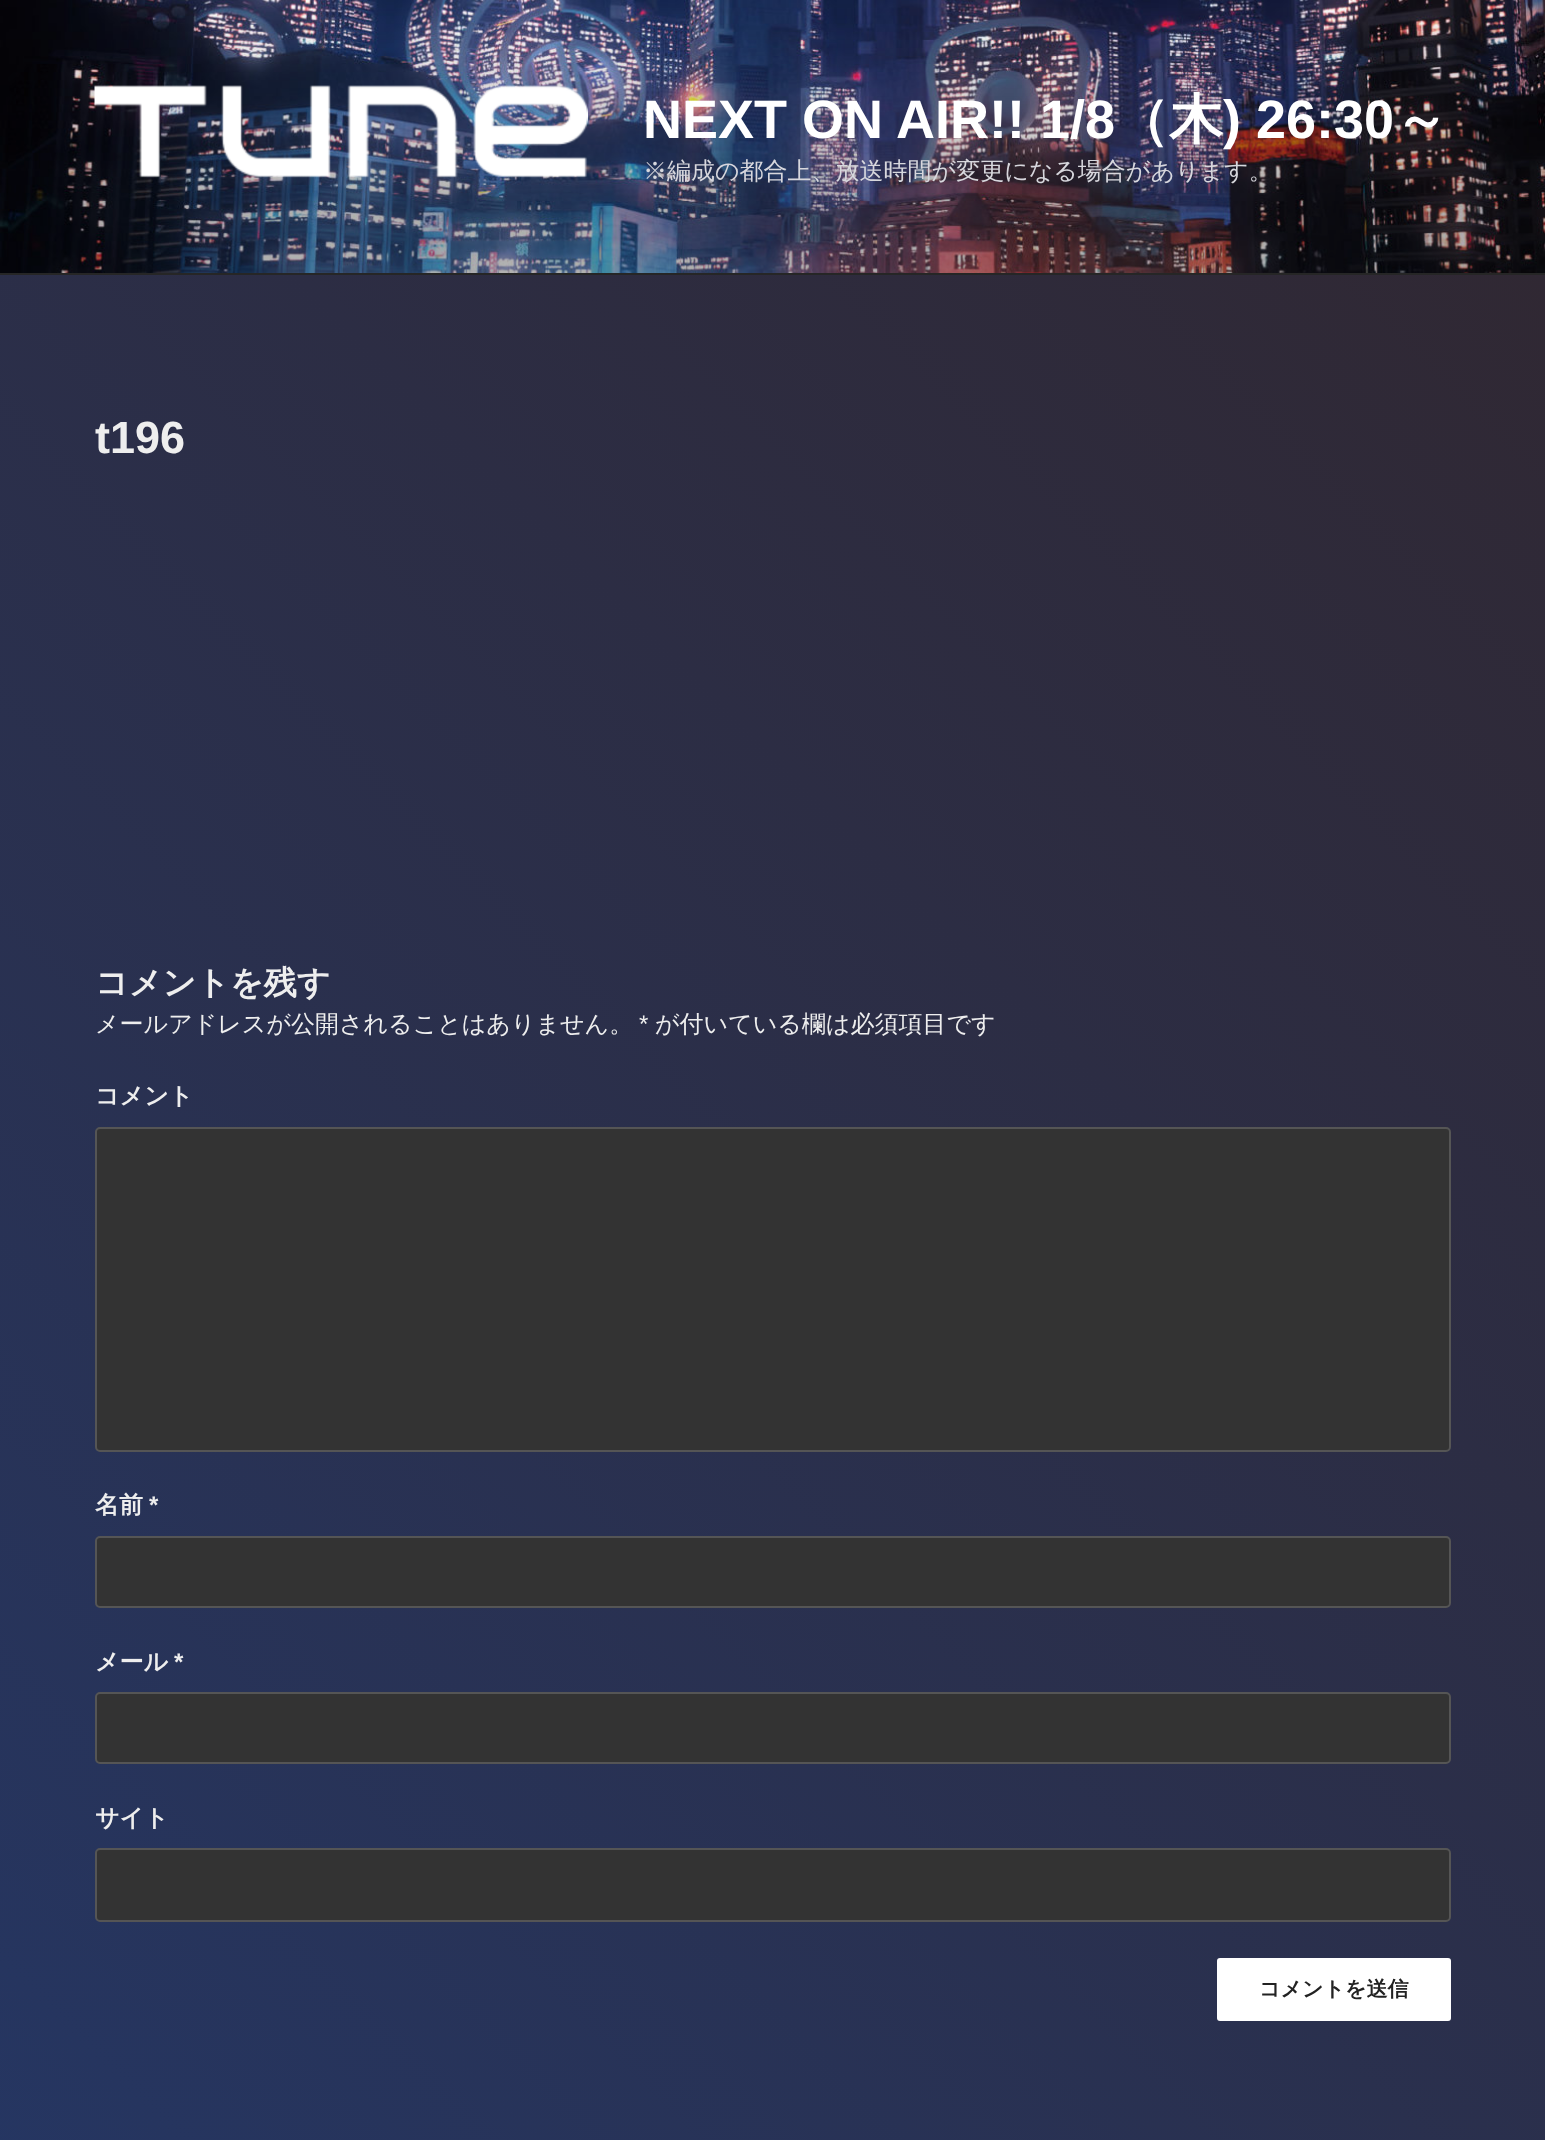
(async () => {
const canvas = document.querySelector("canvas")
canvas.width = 1545
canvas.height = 2140
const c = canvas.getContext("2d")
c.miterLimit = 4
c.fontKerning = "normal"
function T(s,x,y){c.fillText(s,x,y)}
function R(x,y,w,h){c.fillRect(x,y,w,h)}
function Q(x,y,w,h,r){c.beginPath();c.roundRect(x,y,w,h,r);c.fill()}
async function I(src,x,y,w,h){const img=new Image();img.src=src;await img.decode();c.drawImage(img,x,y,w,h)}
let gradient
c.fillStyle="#262626"
R(0,0,1545,2140)
await I("1.png",0,0,1545,273)
await I("2.png",94,85,494,93)
c.font="bold 54px Liberation Sans"
c.fillStyle="#fff"
T("NEXT ON AIR!! 1/8",643,138)
c.font="bold 54px WenQuanYi Zen Hei"
T("（木",1115,138)
c.font="bold 54px Liberation Sans"
T(") 26:30",1223,138)
c.font="bold 54px WenQuanYi Zen Hei"
T("～",1394,138)
c.font="500 24px WenQuanYi Zen Hei"
c.fillStyle="#d7d7dd"
T("※編成の都合上、放送時間が変更になる場合があります。",643,179)
gradient = c.createLinearGradient(-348,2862,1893,622)
gradient.addColorStop(0,"#223a70")
gradient.addColorStop(1,"#302833")
c.fillStyle = gradient
R(0,275,1545,1865)
c.font="bold 45px Liberation Sans"
c.fillStyle="#eee"
T("t196",95,453)
c.font="bold 33px WenQuanYi Zen Hei"
T("コメントを残す",95,994)
c.font="500 24px WenQuanYi Zen Hei"
T("メールアドレスが公開されることはありません。",95,1032)
c.font="24px Liberation Sans"
T("*",639,1032)
c.font="500 24px WenQuanYi Zen Hei"
T("が付いている欄は必須項目です",655,1032)
c.font="bold 24px WenQuanYi Zen Hei"
T("コメント",95,1104)
c.fillStyle="#333"
c.beginPath()
c.roundRect(96,1128,1354,323,4)
c.fill()
c.strokeStyle="#555"
c.lineWidth=2
c.stroke()
c.fillStyle="#eee"
T("名前",95,1513)
c.font="bold 24px Liberation Sans"
T("*",149,1513)
c.fillStyle="#333"
c.beginPath()
c.roundRect(96,1537,1354,70,4)
c.fill()
c.stroke()
c.font="bold 24px WenQuanYi Zen Hei"
c.fillStyle="#eee"
T("メール",95,1670)
c.font="bold 24px Liberation Sans"
T("*",174,1670)
c.fillStyle="#333"
c.beginPath()
c.roundRect(96,1693,1354,70,4)
c.fill()
c.stroke()
c.font="bold 24px WenQuanYi Zen Hei"
c.fillStyle="#eee"
T("サイト",95,1826)
c.fillStyle="#333"
c.beginPath()
c.roundRect(96,1849,1354,72,4)
c.fill()
c.stroke()
c.fillStyle="#fff"
Q(1217,1958,234,63,3)
c.font="bold 21px WenQuanYi Zen Hei"
c.fillStyle="#222"
T("コメントを送信",1259,1996)
})()
